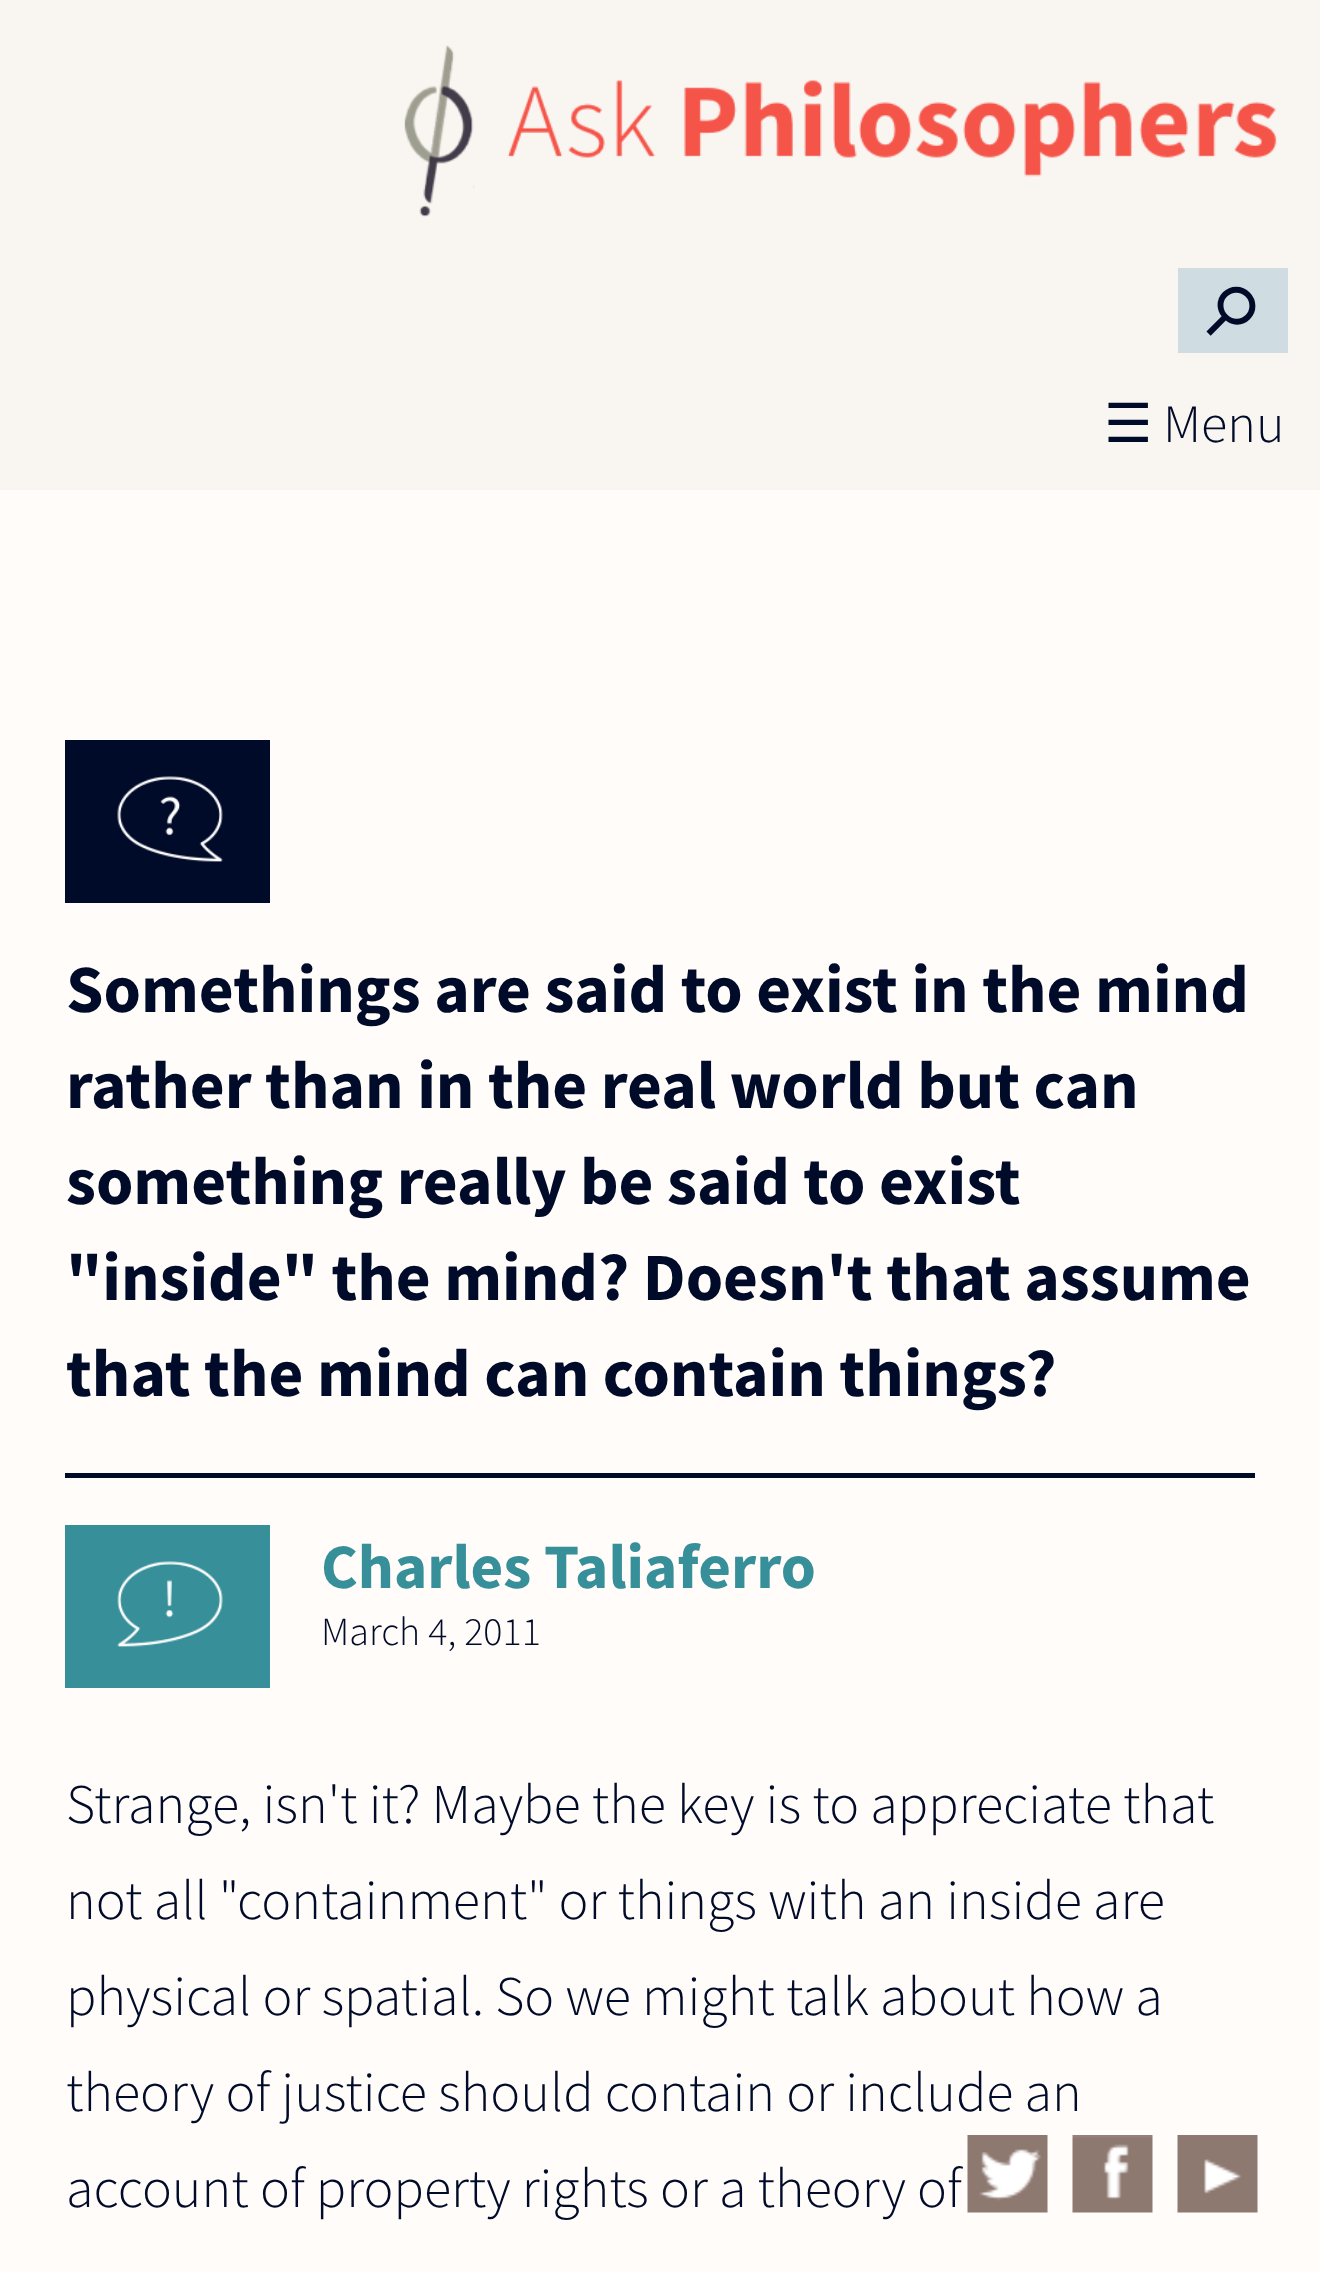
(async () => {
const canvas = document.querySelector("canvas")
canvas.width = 1320
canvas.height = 2272
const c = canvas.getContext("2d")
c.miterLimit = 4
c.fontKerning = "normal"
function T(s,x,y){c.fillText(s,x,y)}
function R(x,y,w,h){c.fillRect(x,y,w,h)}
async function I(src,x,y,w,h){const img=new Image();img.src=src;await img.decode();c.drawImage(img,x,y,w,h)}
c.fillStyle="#fffcf9"
R(0,0,1320,2272)
c.fillStyle="#f9f5f1"
R(0,0,1320,490)
await I("1.png",404,45,873,172)
c.fillStyle="#cfdce1"
R(1178,268,110,85)
c.font="68px DejaVu Sans"
c.fillStyle="#000b29"
c.save()
c.translate(1197,310)
c.rotate(45 * Math.PI / 180)
c.fillText("⚲",0,0)
c.restore()
c.font="54px DejaVu Sans"
T("☰",1104,442)
c.font="300 54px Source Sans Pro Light"
T("Menu",1163,442)
R(65,740,205,163)
await I("2.png",117,776,106,86)
c.font="bold 67.5px Source Sans Pro"
T("Somethings are said to exist in the mind",66,1012)
T("rather than in the real world but can",66,1108)
T("something really be said to exist",66,1204)
T("\"inside\" the mind? Doesn't that assume",66,1300)
T("that the mind can contain things?",66,1396)
R(65,1473,1190,5)
c.fillStyle="#368f99"
R(65,1525,205,163)
await I("3.png",117,1561,106,86)
c.font="bold 63.25px Source Sans Pro"
T("Charles Taliaferro",321,1588)
c.font="300 40px Source Sans Pro Light"
c.fillStyle="#000b29"
T("March 4, 2011",321,1645)
c.font="300 56px Source Sans Pro Light"
T("Strange, isn't it? Maybe the key is to appreciate that",66,1823)
T("not all \"containment\" or things with an inside are",66,1919)
T("physical or spatial. So we might talk about how a",66,2015)
T("theory of justice should contain or include an",66,2111)
T("account of property rights or a theory of",66,2207)
await I("4.png",967,2135,81,78)
await I("5.png",1072,2135,81,78)
await I("6.png",1177,2135,81,78)
})()
